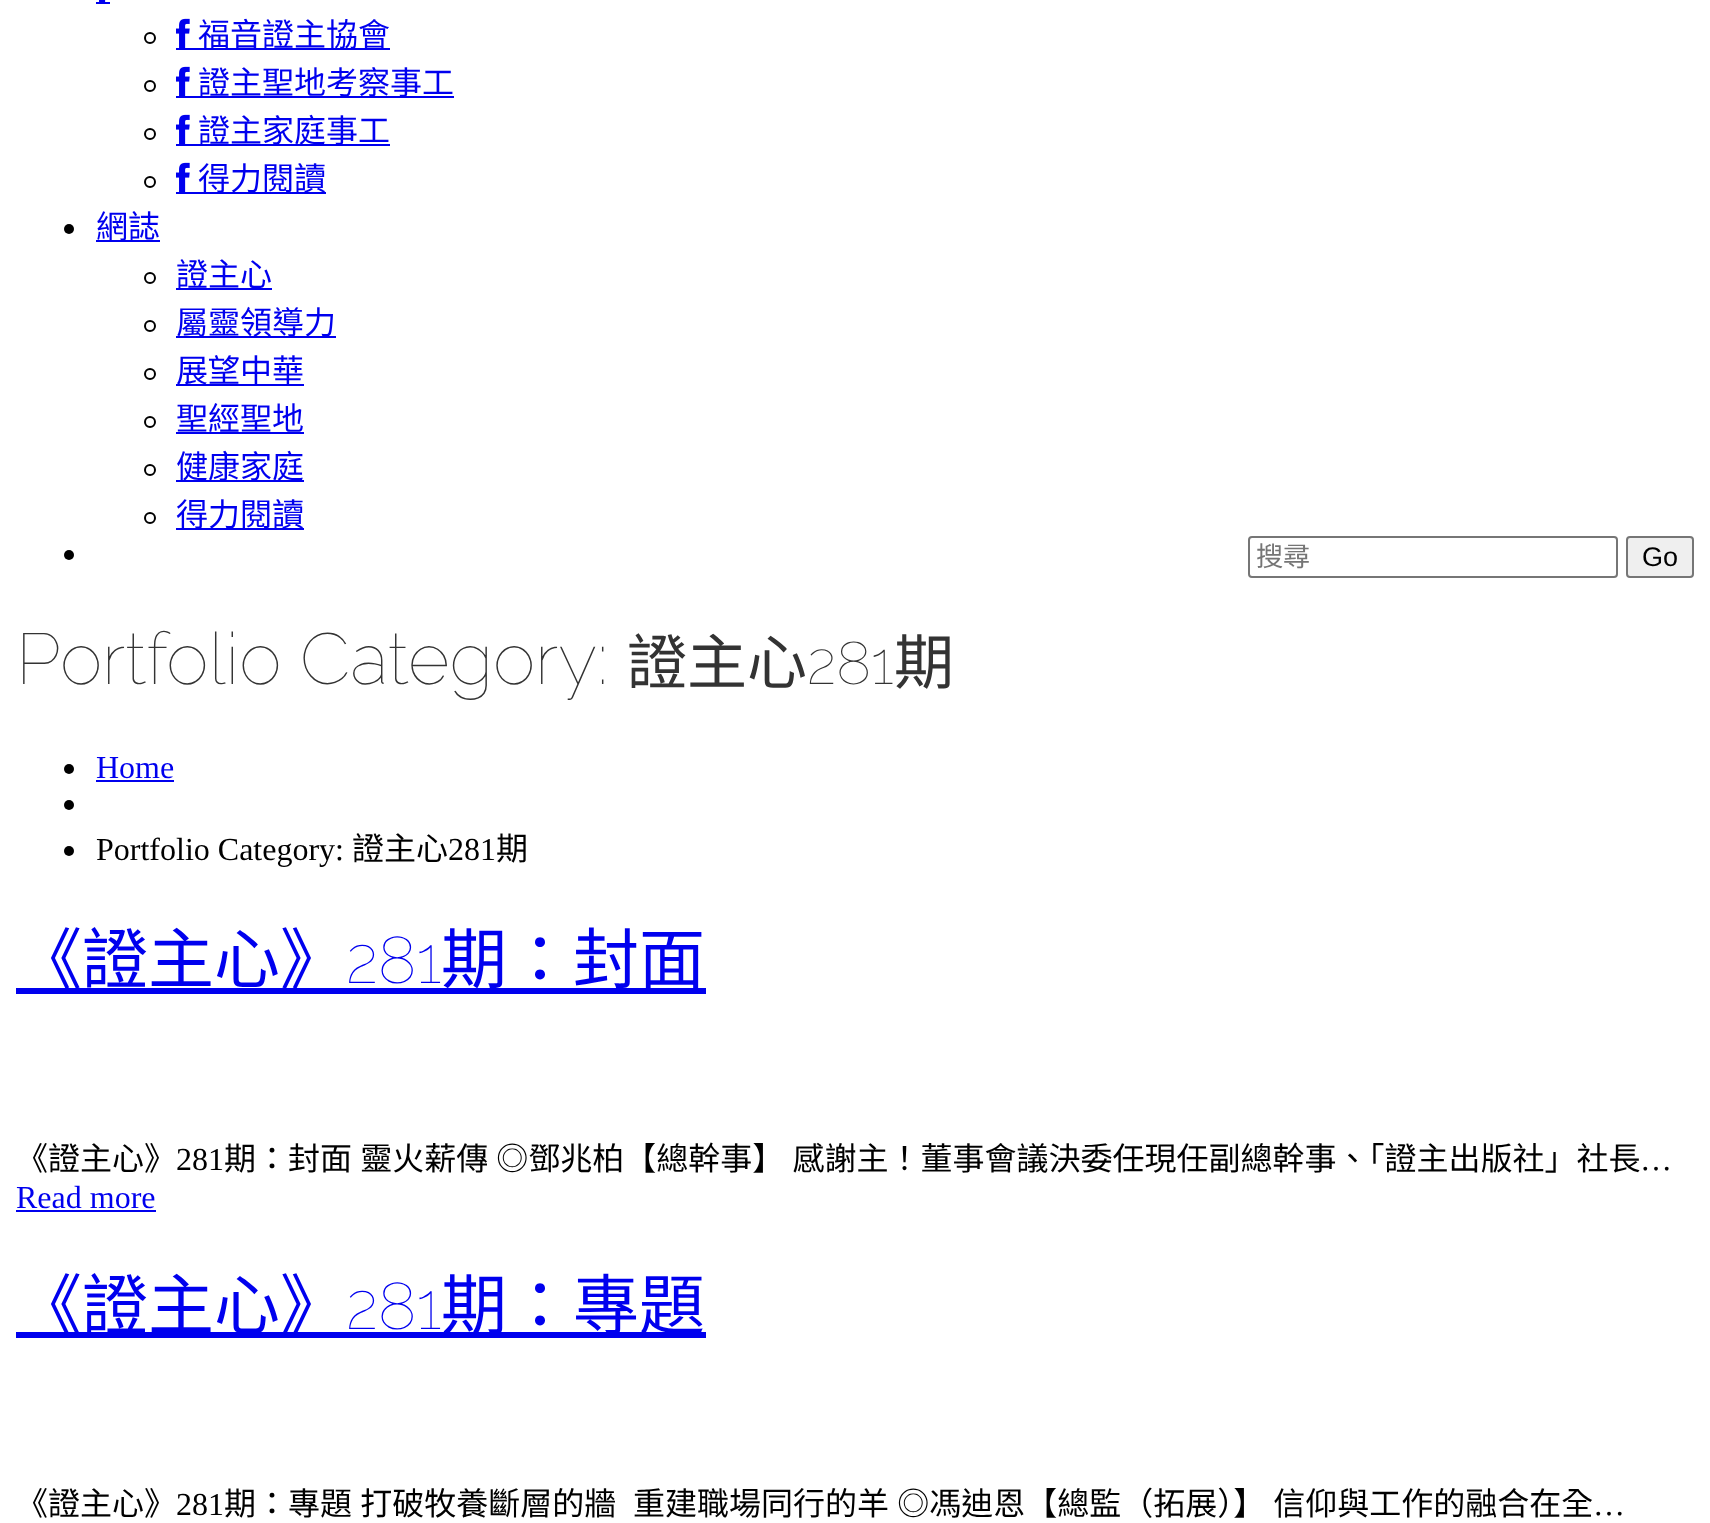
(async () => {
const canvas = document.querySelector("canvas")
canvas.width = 1710
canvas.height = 1523
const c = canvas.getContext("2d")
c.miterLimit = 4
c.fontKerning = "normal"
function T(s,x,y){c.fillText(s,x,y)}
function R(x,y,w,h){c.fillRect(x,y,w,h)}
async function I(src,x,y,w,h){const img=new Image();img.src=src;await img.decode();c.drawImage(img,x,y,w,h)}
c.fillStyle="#fff"
R(0,0,1710,1523)
c.fillStyle="#00e"
R(96,2,14,2)
await I("1.png",99,0,7,2)
c.beginPath()
c.arc(150,38,5,0,7)
c.strokeStyle="#000"
c.lineWidth=2
c.stroke()
R(176,48,214,2)
await I("2.png",176,18,14,30)
c.font="32px Noto Sans CJK HK"
T("福音證主協會",198,46)
c.beginPath()
c.arc(150,86,5,0,7)
c.stroke()
R(176,96,278,2)
await I("2.png",176,66,14,30)
T("證主聖地考察事工",198,94)
c.beginPath()
c.arc(150,134,5,0,7)
c.stroke()
R(176,144,214,2)
await I("2.png",176,114,14,30)
T("證主家庭事工",198,142)
c.beginPath()
c.arc(150,182,5,0,7)
c.stroke()
R(176,192,150,2)
await I("2.png",176,162,14,30)
T("得力閱讀",198,190)
c.fillStyle="#000"
c.beginPath()
c.arc(69,229,5,0,7)
c.fill()
c.fillStyle="#00e"
R(96,240,64,2)
T("網誌",96,238)
c.beginPath()
c.arc(150,278,5,0,7)
c.stroke()
R(176,288,96,2)
T("證主心",176,286)
c.beginPath()
c.arc(150,326,5,0,7)
c.stroke()
R(176,336,160,2)
T("屬靈領導力",176,334)
c.beginPath()
c.arc(150,374,5,0,7)
c.stroke()
R(176,384,128,2)
T("展望中華",176,382)
c.beginPath()
c.arc(150,422,5,0,7)
c.stroke()
T("聖經聖地",176,430)
R(176,432,128,2)
c.beginPath()
c.arc(150,470,5,0,7)
c.stroke()
R(176,480,128,2)
T("健康家庭",176,478)
c.beginPath()
c.arc(150,518,5,0,7)
c.stroke()
R(176,528,128,2)
T("得力閱讀",176,526)
c.fillStyle="#000"
c.beginPath()
c.arc(69,555,5,0,7)
c.fill()
c.beginPath()
c.roundRect(1249,537,368,40,3)
c.strokeStyle="#767676"
c.stroke()
c.font="27px Noto Sans CJK HK"
c.fillStyle="#757575"
T("搜尋",1256,566)
c.fillStyle="#efefef"
c.beginPath()
c.roundRect(1627,537,66,40,3)
c.fill()
c.stroke()
c.font="27px Liberation Sans"
c.fillStyle="#000"
T("Go",1642,566)
c.font="100 72px Raleway"
c.fillStyle="#333"
T("Portfolio Category:",16,684)
c.font="60px Noto Sans CJK HK"
T("證主心",627,684)
c.font="100 60px Raleway"
T("281",807,684)
c.font="60px Noto Sans CJK HK"
T("期",894,684)
c.fillStyle="#000"
c.beginPath()
c.arc(69,769,5,0,7)
c.fill()
c.font="32px Liberation Serif"
c.fillStyle="#00e"
T("Home",96,778)
R(96,780,78,2)
c.fillStyle="#000"
c.beginPath()
c.arc(69,805,5,0,7)
c.fill()
c.beginPath()
c.arc(69,851,5,0,7)
c.fill()
T("Portfolio Category:",96,860)
c.font="32px Noto Sans CJK HK"
T("證主心",352,860)
c.font="32px Liberation Serif"
T("281",448,860)
c.font="32px Noto Sans CJK HK"
T("期",496,860)
c.fillStyle="#00e"
R(16,988,690,6)
c.font="66px Noto Sans CJK HK"
T("《證主心》",16,983)
c.font="100 66px Raleway"
T("281",346,983)
c.font="66px Noto Sans CJK HK"
T("期：封面",441,983)
c.font="32px Noto Sans CJK HK"
c.fillStyle="#000"
T("《證主心》",16,1170)
c.font="32px Liberation Serif"
T("281",176,1170)
c.wordSpacing="1px"
c.font="32px Noto Sans CJK HK"
T("期：封面 靈火薪傳 ◎鄧兆柏【總幹事】 感謝主！董事會議決委任現任副總幹事、「證主出版社」社長",224,1170)
c.wordSpacing="0px"
c.font="32px Liberation Serif"
T("…",1640,1170)
c.fillStyle="#00e"
T("Read more",16,1208)
R(16,1210,140,2)
R(16,1332,690,6)
c.font="66px Noto Sans CJK HK"
T("《證主心》",16,1329)
c.font="100 66px Raleway"
T("281",346,1329)
c.font="66px Noto Sans CJK HK"
T("期：專題",441,1329)
c.font="32px Noto Sans CJK HK"
c.fillStyle="#000"
T("《證主心》",16,1515)
c.font="32px Liberation Serif"
T("281",176,1515)
c.wordSpacing="1px"
c.font="32px Noto Sans CJK HK"
T("期：專題 打破牧養斷層的牆",224,1515)
T("重建職場同行的羊 ◎馮迪恩【總監（拓展）】 信仰與工作的融合在全",633,1515)
c.wordSpacing="0px"
c.font="32px Liberation Serif"
T("…",1593,1515)
})()
